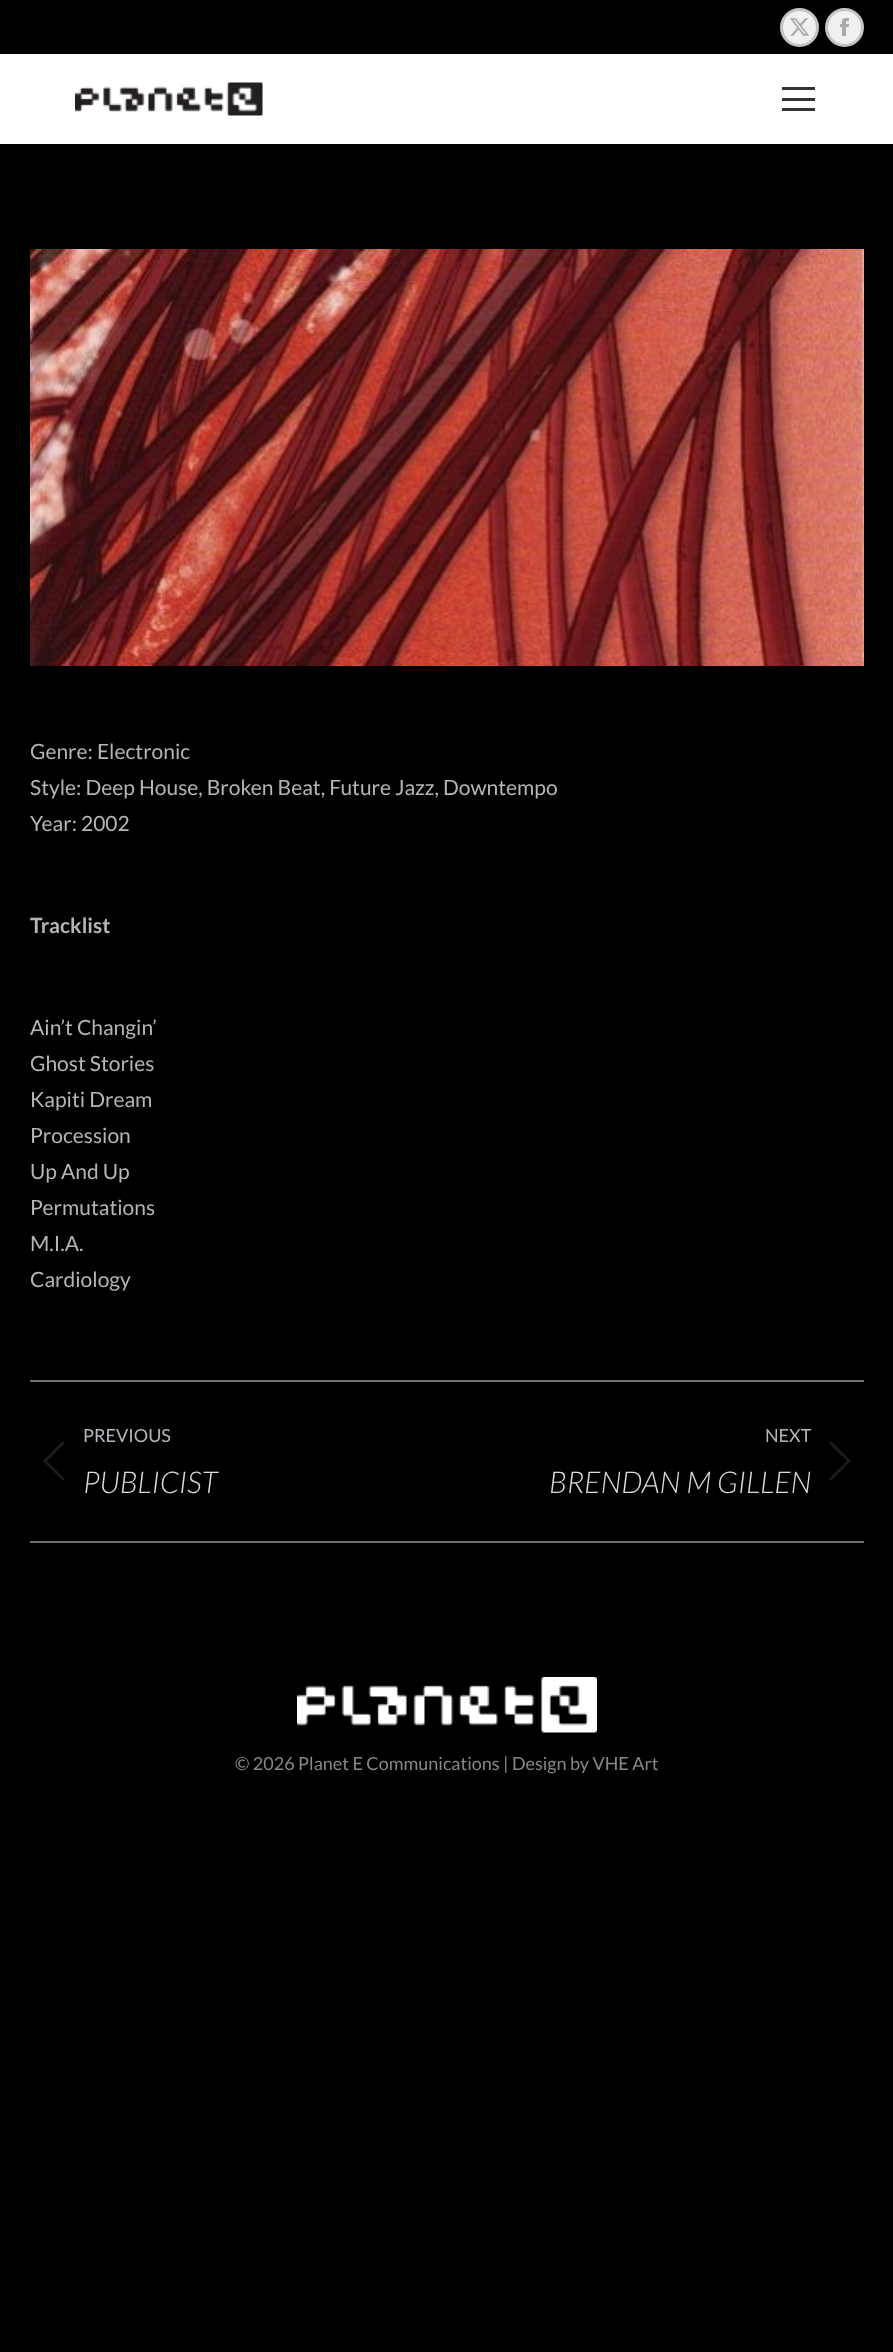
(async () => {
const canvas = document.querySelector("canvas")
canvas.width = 893
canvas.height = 2352
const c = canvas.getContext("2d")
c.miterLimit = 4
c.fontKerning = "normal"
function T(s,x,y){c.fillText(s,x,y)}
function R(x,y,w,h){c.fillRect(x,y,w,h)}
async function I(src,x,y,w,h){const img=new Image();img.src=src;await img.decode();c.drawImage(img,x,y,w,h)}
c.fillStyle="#000"
R(0,0,893,2352)
c.fillStyle="#fff"
R(0,54,893,90)
c.fillStyle="#f0f0f0"
c.beginPath()
c.arc(799.5,27.5,18,0,7)
c.fill()
c.strokeStyle="#c3c3c3"
c.lineWidth=3
c.stroke()
await I("1.png",790,18,19,18)
c.beginPath()
c.arc(844.5,27.5,18,0,7)
c.fill()
c.stroke()
await I("2.png",840,18,9,18)
await I("3.png",75,82,188,34)
c.fillStyle="#333"
R(782,87,33,3)
R(782,98,33,3)
R(782,108,33,3)
await I("4.png",30,249,834,417)
c.font="21px Lato"
c.fillStyle="#b5b5b5"
T("Genre: Electronic",30,759)
T("Style: Deep House, Broken Beat, Future Jazz, Downtempo",30,795)
T("Year: 2002",30,831)
c.font="bold 21px Lato"
T("Tracklist",30,933)
c.font="21px Lato"
T("Ain’t Changin’",30,1035)
T("Ghost Stories",30,1071)
T("Kapiti Dream",30,1107)
T("Procession",30,1143)
T("Up And Up",30,1179)
T("Permutations",30,1215)
T("M.I.A.",30,1251)
T("Cardiology",30,1287)
c.fillStyle="#707070"
R(30,1380,834,2)
R(30,1541,834,2)
c.font="18px Lato"
c.fillStyle="#b4b5bb"
T("PREVIOUS",83,1442)
await I("5.png",43,1441,22,40)
c.font="italic 300 30px Lato"
c.fillStyle="#dbdbdb"
T("PUBLICIST",83,1493)
c.font="18px Lato"
c.fillStyle="#b4b5bb"
T("NEXT",765,1442)
c.font="italic 300 30px Lato"
c.fillStyle="#dbdbdb"
T("BRENDAN M GILLEN",549,1493)
await I("6.png",829,1441,22,40)
await I("7.png",297,1677,300,56)
c.font="18px Lato"
c.fillStyle="#888"
T("© 2026 Planet E Communications | Design by VHE Art",235,1770)
})()
